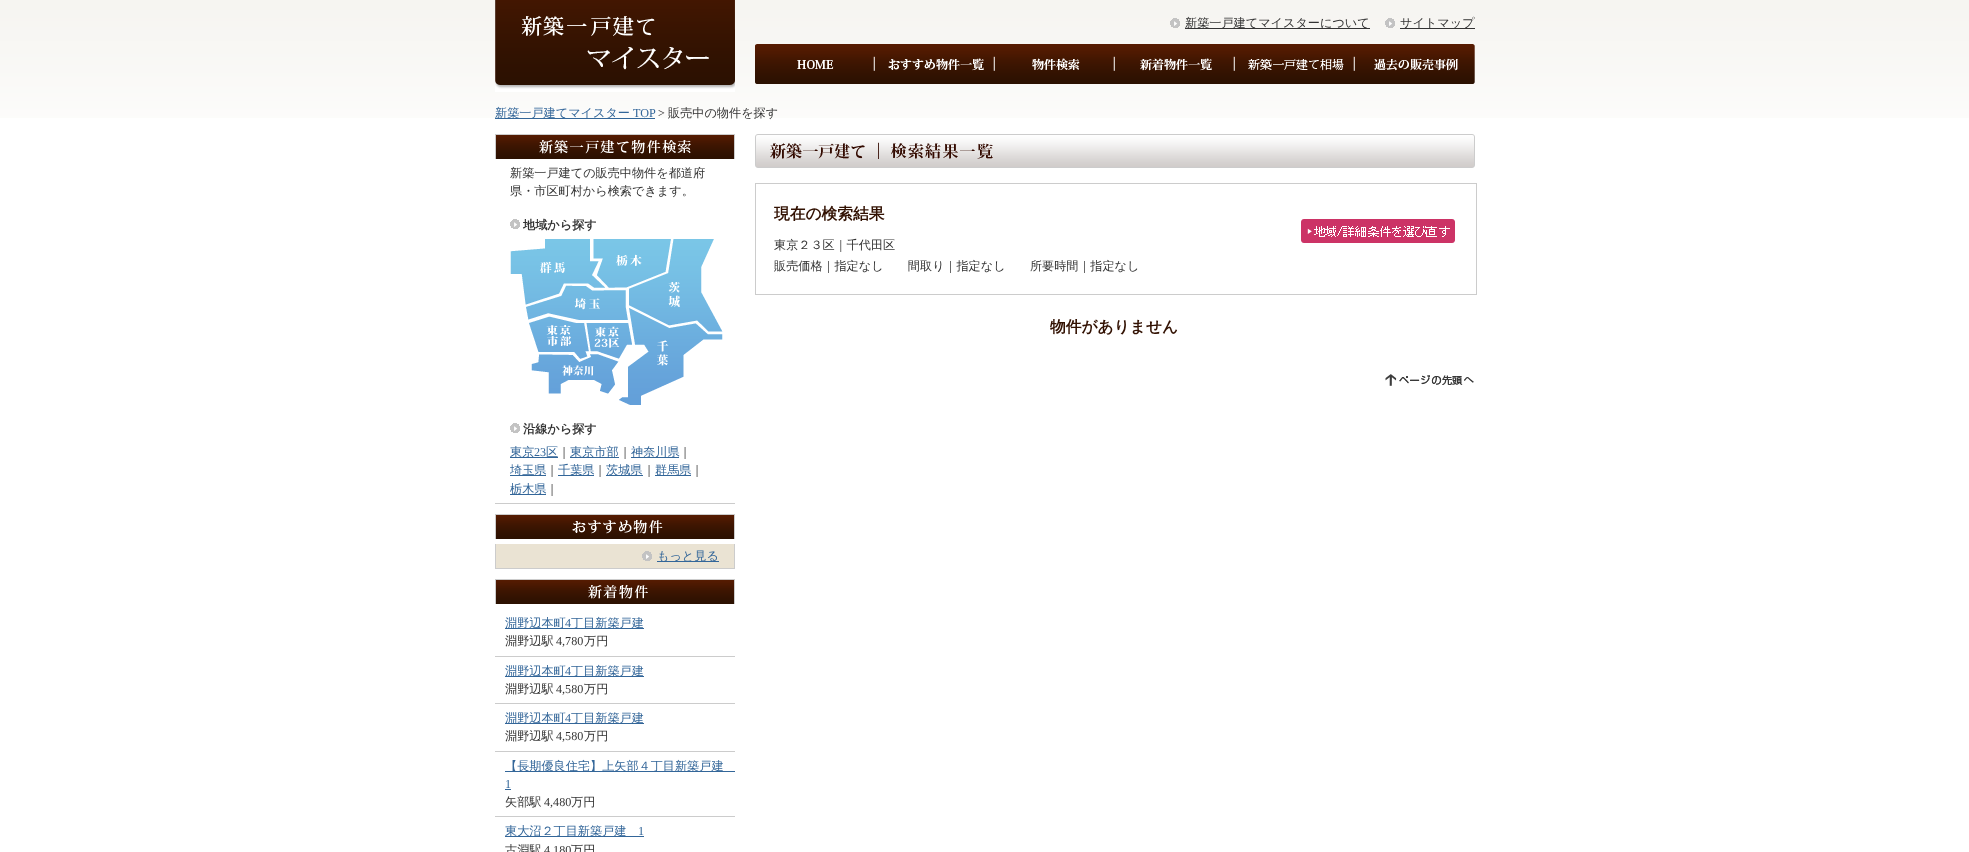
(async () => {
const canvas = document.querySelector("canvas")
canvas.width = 1969
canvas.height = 852
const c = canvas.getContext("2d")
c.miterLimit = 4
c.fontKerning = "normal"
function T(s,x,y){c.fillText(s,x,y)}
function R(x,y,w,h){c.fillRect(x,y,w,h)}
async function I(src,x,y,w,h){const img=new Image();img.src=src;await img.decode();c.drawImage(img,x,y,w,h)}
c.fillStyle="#fff"
R(0,0,1969,852)
await I("1.png",0,0,1969,118)
await I("2.png",495,0,240,92)
await I("3.png",1170,18,10,10)
c.fillStyle="#333"
R(1185,28,185,1)
c.font="500 12.15px WenQuanYi Zen Hei"
T("新築一戸建てマイスターについて",1185,27)
await I("3.png",1385,18,10,10)
R(1400,28,75,1)
T("サイトマップ",1400,27)
await I("4.png",755,44,120,40)
await I("5.png",875,44,120,40)
await I("6.png",995,44,120,40)
await I("7.png",1115,44,120,40)
await I("8.png",1235,44,120,40)
await I("9.png",1355,44,120,40)
c.fillStyle="#369"
R(495,118,160,1)
T("新築一戸建てマイスター",495,117)
c.font="12.15px Liberation Serif"
T("TOP",633,117)
c.fillStyle="#333"
T(">",658,117)
c.font="500 12.15px WenQuanYi Zen Hei"
T("販売中の物件を探す",668,117)
await I("10.png",495,134,240,25)
T("新築一戸建ての販売中物件を都道府",510,177)
T("県・市区町村から検索できます。",510,195)
await I("11.png",510,219,10,10)
c.font="bold 12.15px WenQuanYi Zen Hei"
T("地域から探す",523,229)
await I("12.png",510,239,213,166)
await I("11.png",510,423,10,10)
T("沿線から探す",523,433)
c.fillStyle="#ccc"
R(495,503,240,1)
c.fillStyle="#369"
R(510,457,48,1)
c.font="500 12.15px WenQuanYi Zen Hei"
T("東京",510,456)
c.font="12.15px Liberation Serif"
T("23",534,456)
c.font="500 12.15px WenQuanYi Zen Hei"
T("区",546,456)
c.fillStyle="#333"
T("｜",558,456)
c.fillStyle="#369"
R(570,457,49,1)
T("東京市部",570,456)
c.fillStyle="#333"
T("｜",619,456)
c.fillStyle="#369"
R(631,457,48,1)
T("神奈川県",631,456)
c.fillStyle="#333"
T("｜",679,456)
c.fillStyle="#369"
R(510,475,36,1)
T("埼玉県",510,474)
c.fillStyle="#333"
T("｜",546,474)
c.fillStyle="#369"
R(558,475,36,1)
T("千葉県",558,474)
c.fillStyle="#333"
T("｜",594,474)
c.fillStyle="#369"
R(606,475,37,1)
T("茨城県",606,474)
c.fillStyle="#333"
T("｜",643,474)
c.fillStyle="#369"
R(655,475,36,1)
T("群馬県",655,474)
c.fillStyle="#333"
T("｜",691,474)
c.fillStyle="#369"
R(510,494,36,1)
T("栃木県",510,493)
c.fillStyle="#333"
T("｜",546,493)
await I("13.png",495,514,240,25)
c.fillStyle="#eae3d3"
R(496,544,238,24)
c.fillStyle="#ccc"
R(734,544,1,25)
R(495,568,240,1)
R(495,544,1,25)
await I("14.png",642,551,10,10)
c.fillStyle="#369"
R(657,561,62,1)
T("もっと見る",657,560)
await I("15.png",495,579,240,25)
c.fillStyle="#ccc"
R(495,656,240,1)
c.fillStyle="#369"
R(505,628,139,1)
T("淵野辺本町",505,627)
c.font="12.15px Liberation Serif"
T("4",565,627)
c.font="500 12.15px WenQuanYi Zen Hei"
T("丁目新築戸建",571,627)
c.fillStyle="#333"
T("淵野辺駅",505,645)
c.font="12.15px Liberation Serif"
T("4,780",556,645)
c.font="500 12.15px WenQuanYi Zen Hei"
T("万円",584,645)
c.fillStyle="#ccc"
R(495,703,240,1)
c.fillStyle="#369"
R(505,676,139,1)
T("淵野辺本町",505,675)
c.font="12.15px Liberation Serif"
T("4",565,675)
c.font="500 12.15px WenQuanYi Zen Hei"
T("丁目新築戸建",571,675)
c.fillStyle="#333"
T("淵野辺駅",505,693)
c.font="12.15px Liberation Serif"
T("4,580",556,693)
c.font="500 12.15px WenQuanYi Zen Hei"
T("万円",584,693)
c.fillStyle="#ccc"
R(495,751,240,1)
c.fillStyle="#369"
R(505,723,139,1)
T("淵野辺本町",505,722)
c.font="12.15px Liberation Serif"
T("4",565,722)
c.font="500 12.15px WenQuanYi Zen Hei"
T("丁目新築戸建",571,722)
c.fillStyle="#333"
T("淵野辺駅",505,740)
c.font="12.15px Liberation Serif"
T("4,580",556,740)
c.font="500 12.15px WenQuanYi Zen Hei"
T("万円",584,740)
c.fillStyle="#ccc"
R(495,816,240,1)
c.fillStyle="#369"
R(505,771,230,1)
T("【長期優良住宅】上矢部４丁目新築戸建",505,770)
c.font="12.15px Liberation Serif"
T("1",505,788)
R(505,789,6,1)
c.font="500 12.15px WenQuanYi Zen Hei"
c.fillStyle="#333"
T("矢部駅",505,806)
c.font="12.15px Liberation Serif"
T("4,480",544,806)
c.font="500 12.15px WenQuanYi Zen Hei"
T("万円",571,806)
c.fillStyle="#369"
R(505,836,139,1)
T("東大沼２丁目新築戸建",505,835)
c.font="12.15px Liberation Serif"
T("1",638,835)
c.font="500 12.15px WenQuanYi Zen Hei"
c.fillStyle="#333"
T("古淵駅",505,854)
c.font="12.15px Liberation Serif"
T("4,180",544,854)
c.font="500 12.15px WenQuanYi Zen Hei"
T("万円",571,854)
await I("16.png",755,134,720,34)
c.strokeStyle="#ccc"
c.strokeRect(755.5,183.5,721,111)
c.font="bold 15.75px WenQuanYi Zen Hei"
c.fillStyle="#321102"
T("現在の検索結果",774,219)
c.font="500 12.15px WenQuanYi Zen Hei"
c.fillStyle="#333"
T("東京２３区｜千代田区",774,249)
T("販売価格｜指定なし　　間取り｜指定なし　　所要時間｜指定なし",774,270)
await I("17.png",1301,219,154,24)
c.font="bold 15.75px WenQuanYi Zen Hei"
c.fillStyle="#321102"
T("物件がありません",1050,332)
await I("18.png",1385,374,89,12)
})()
